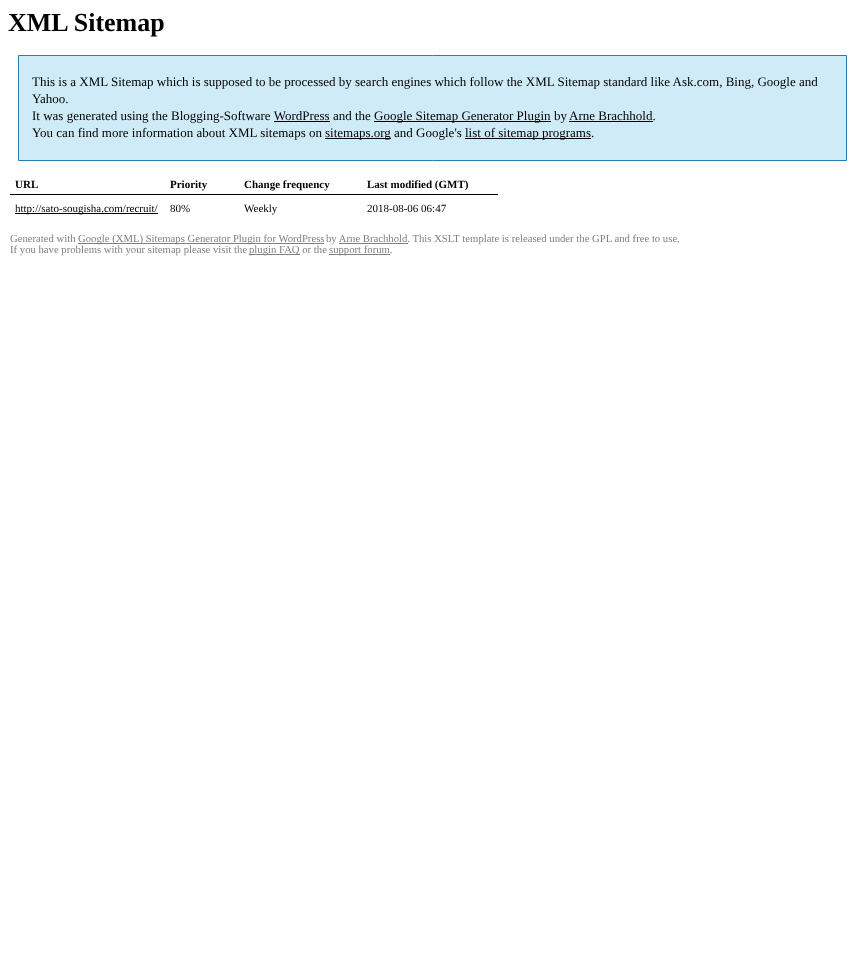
(async () => {
const canvas = document.querySelector("canvas")
canvas.width = 865
canvas.height = 979
const c = canvas.getContext("2d")
c.miterLimit = 4
c.fontKerning = "normal"
function T(s,x,y){c.fillText(s,x,y)}
function R(x,y,w,h){c.fillRect(x,y,w,h)}
c.fillStyle="#fff"
R(0,0,865,979)
c.font="bold 26px Liberation Serif"
c.fillStyle="#000"
T("XML Sitemap",8,31)
c.fillStyle="#cfebf7"
c.beginPath()
c.rect(18.5,55.5,828,105)
c.fill()
c.strokeStyle="#2580b2"
c.stroke()
c.font="13px Liberation Serif"
c.fillStyle="#000"
T("This is a XML Sitemap which is supposed to be processed by search engines which follow the XML Sitemap standard like Ask.com, Bing, Google and",32,86)
T("Yahoo.",32,103)
T("It was generated using the Blogging-Software WordPress and the",32,120)
R(374,121,177,1)
T("Google Sitemap Generator Plugin",374,120)
T("by",554,120)
T("Arne Brachhold.",569,120)
R(569,121,84,1)
R(274,121,56,1)
T("You can find more information about XML sitemaps on",32,137)
R(325,138,66,1)
T("sitemaps.org and Google's",325,137)
R(465,138,126,1)
T("list of sitemap programs.",465,137)
R(10,194,488,1)
c.font="bold 11px Liberation Serif"
T("URL",15,188)
T("Priority",170,188)
T("Change frequency",244,188)
T("Last modified (GMT)",367,188)
R(15,213,143,1)
c.font="11px Liberation Serif"
T("http://sato-sougisha.com/recruit/",15,212)
T("80%",170,212)
T("Weekly",244,212)
T("2018-08-06 06:47",367,212)
c.font="10.7px Liberation Serif"
c.fillStyle="#808080"
T("Generated with",10,242)
R(78,243,246,1)
T("Google (XML) Sitemaps Generator Plugin for WordPress",78,242)
T("by Arne Brachhold. This XSLT template is released under the GPL and free to use.",326,242)
R(339,243,69,1)
T("If you have problems with your sitemap please visit the",10,253)
R(249,254,51,1)
T("plugin FAQ or the",249,253)
R(329,254,61,1)
T("support forum.",329,253)
})()
